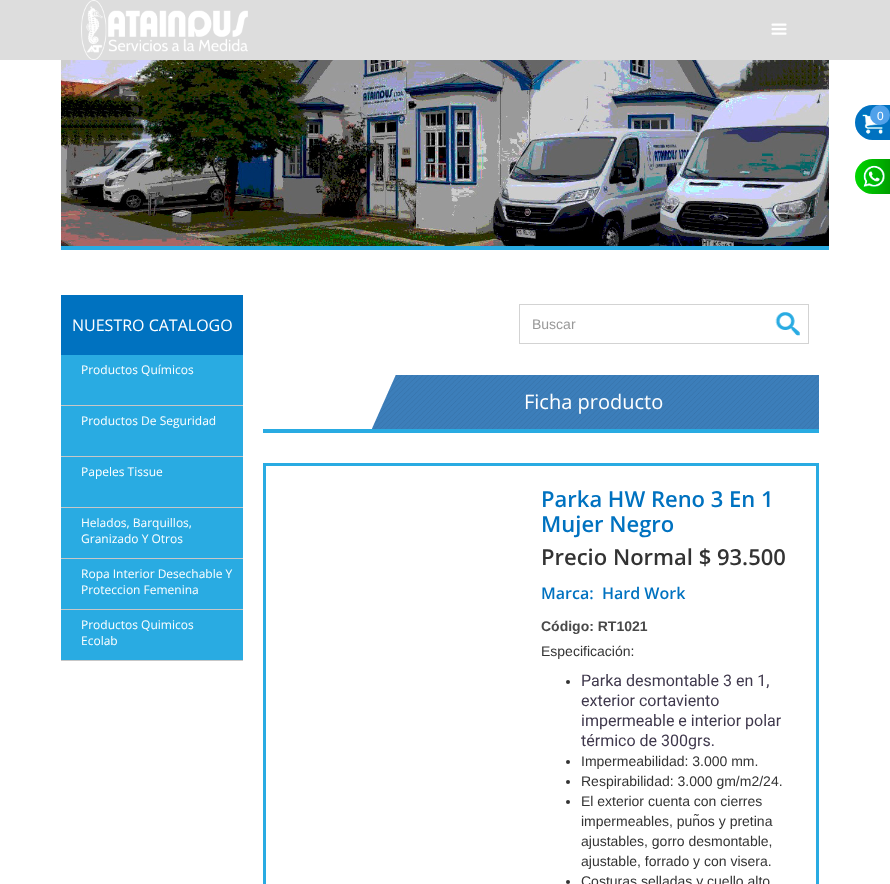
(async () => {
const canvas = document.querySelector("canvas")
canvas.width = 890
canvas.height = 884
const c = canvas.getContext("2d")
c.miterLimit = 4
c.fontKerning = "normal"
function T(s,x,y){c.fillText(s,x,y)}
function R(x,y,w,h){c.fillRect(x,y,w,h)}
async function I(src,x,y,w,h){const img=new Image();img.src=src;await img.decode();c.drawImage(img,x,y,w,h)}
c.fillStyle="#fff"
R(0,0,890,884)
c.fillStyle="#ddd"
R(0,0,890,60)
await I("1.png",81,0,167,60)
await I("2.png",771,23,16,12)
await I("3.png",61,60,768,186)
c.fillStyle="#29abe2"
R(61,246,768,4)
await I("4.png",855,105,35,35)
c.fillStyle="#50a1ea"
c.beginPath()
c.arc(880,115,10,0,7)
c.fill()
c.font="12px Liberation Sans"
c.fillStyle="#fff"
T("0",877,120)
await I("5.png",855,159,35,35)
c.fillStyle="#29abe2"
R(61,355,182,305)
c.fillStyle="#0072c0"
R(61,295,182,60)
c.font="16px Open Sans"
c.fillStyle="#fff"
T("NUESTRO CATALOGO",72,331)
c.fillStyle="#c7c7c7"
R(61,405,182,1)
c.font="12px Open Sans"
c.fillStyle="#fff"
T("Productos Químicos",81,374)
c.fillStyle="#c7c7c7"
R(61,456,182,1)
c.fillStyle="#fff"
T("Productos De Seguridad",81,425)
c.fillStyle="#c7c7c7"
R(61,507,182,1)
c.fillStyle="#fff"
T("Papeles Tissue",81,476)
c.fillStyle="#c7c7c7"
R(61,558,182,1)
c.fillStyle="#fff"
T("Helados, Barquillos,",81,527)
T("Granizado Y Otros",81,543)
c.fillStyle="#c7c7c7"
R(61,609,182,1)
c.fillStyle="#fff"
T("Ropa Interior Desechable Y",81,578)
T("Proteccion Femenina",81,594)
c.fillStyle="#c7c7c7"
R(61,660,182,1)
c.fillStyle="#fff"
T("Productos Quimicos",81,629)
T("Ecolab",81,645)
c.fillStyle="#29abe2"
R(263,429,556,4)
c.fillStyle="#d3d3d3"
R(519,304,290,1)
R(519,343,250,1)
R(519,304,1,40)
c.font="14px Liberation Sans"
c.fillStyle="#999"
T("Buscar",532,329)
await I("6.png",775,312,25,24)
c.fillStyle="#d3d3d3"
R(808,304,1,40)
R(769,343,40,1)
await I("7.png",372,375,447,54)
c.font="20px Open Sans"
c.fillStyle="#fff"
T("Ficha producto",524,409)
c.strokeStyle="#29abe2"
c.lineWidth=3
c.strokeRect(264.5,464.5,553,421)
c.font="600 22px Open Sans"
c.fillStyle="#0072c0"
T("Parka HW Reno 3 En 1",541,507)
T("Mujer Negro",541,532)
c.fillStyle="#333"
T("Precio Normal $ 93.500",541,565)
c.font="600 16px Open Sans"
c.fillStyle="#0072c0"
T("Marca:",541,599)
T("Hard Work",602,599)
c.font="bold 14px Liberation Sans"
c.fillStyle="#494949"
T("Código: RT1021",541,631)
c.font="14px Liberation Sans"
c.fillStyle="#333"
T("Especificación:",541,656)
c.beginPath()
c.arc(568,682,2,0,7)
c.fill()
c.font="16px Roboto"
c.fillStyle="#3f384c"
T("Parka desmontable 3 en 1,",581,686)
T("exterior cortaviento",581,706)
T("impermeable e interior polar",581,726)
T("térmico de 300grs.",581,746)
c.fillStyle="#333"
c.beginPath()
c.arc(568,762,2,0,7)
c.fill()
c.font="14px Liberation Sans"
T("Impermeabilidad: 3.000 mm.",581,766)
c.beginPath()
c.arc(568,782,2,0,7)
c.fill()
T("Respirabilidad: 3.000 gm/m2/24.",581,786)
c.beginPath()
c.arc(568,802,2,0,7)
c.fill()
T("El exterior cuenta con cierres",581,806)
T("impermeables, puños y pretina",581,826)
T("ajustables, gorro desmontable,",581,846)
T("ajustable, forrado y con visera.",581,866)
c.beginPath()
c.arc(568,882,2,0,7)
c.fill()
T("Costuras selladas y cuello alto",581,886)
})()
